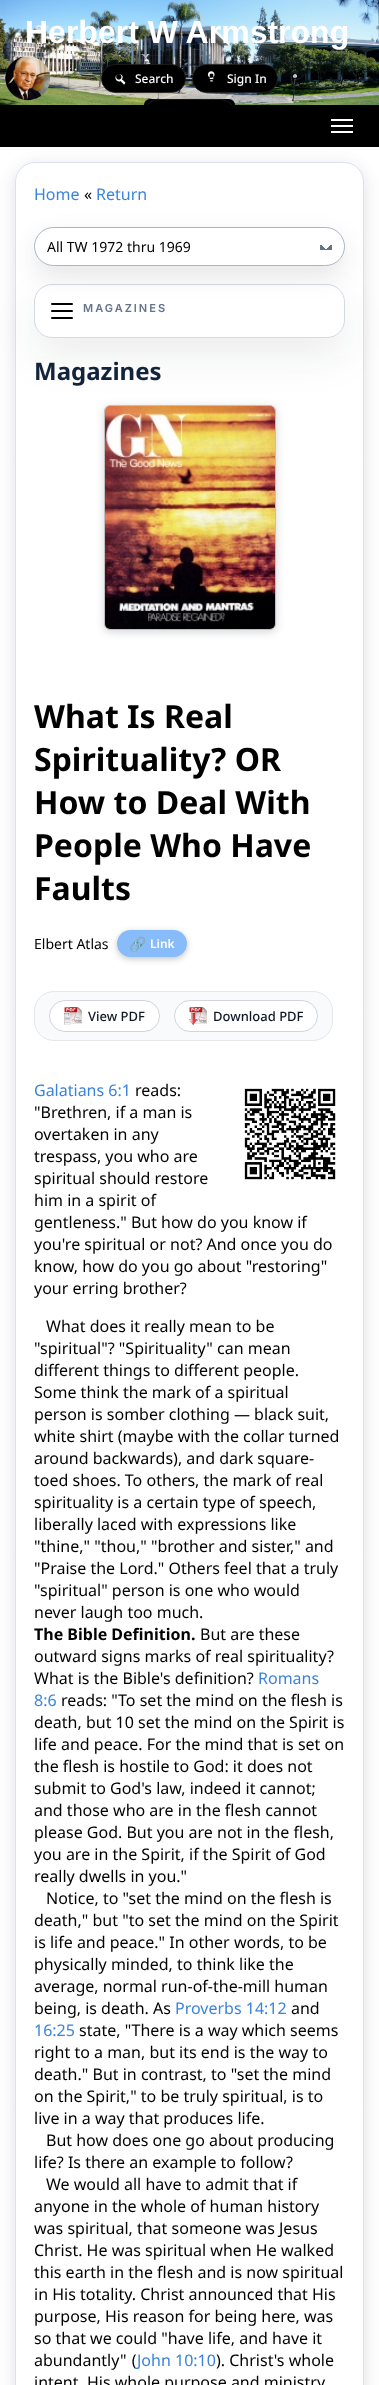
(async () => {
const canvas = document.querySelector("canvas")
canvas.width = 379
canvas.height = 2385
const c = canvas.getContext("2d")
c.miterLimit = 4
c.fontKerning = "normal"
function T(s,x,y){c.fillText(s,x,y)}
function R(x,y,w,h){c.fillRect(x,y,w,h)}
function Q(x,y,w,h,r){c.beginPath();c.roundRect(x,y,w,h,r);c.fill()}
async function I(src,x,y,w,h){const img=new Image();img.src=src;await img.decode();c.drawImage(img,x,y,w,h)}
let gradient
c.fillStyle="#fff"
R(0,0,379,2385)
await I("1.png",0,0,379,105)
c.font="bold 32px Liberation Sans"
T("Herbert W Armstrong",25,43)
c.fillStyle="#000"
c.beginPath()
c.roundRect(101.4,64.4,84.2,28.2,14.1)
c.fill()
c.strokeStyle="#222"
c.lineWidth=0.8
c.stroke()
await I("2.png",115,74,11,11)
c.font="500 12px Noto Sans"
c.fillStyle="#fff"
T("Search",135,83)
c.fillStyle="#000"
c.beginPath()
c.roundRect(192.4,64.4,85.2,28.2,14.1)
c.fill()
c.stroke()
await I("3.png",207,71,8,11)
c.fillStyle="#fff"
T("Sign In",227,83)
c.fillStyle="#000"
c.beginPath()
c.roundRect(144,99,91,6,[14.5,14.5,0,0])
c.fill()
R(0,105,379,42)
c.save()
c.beginPath()
c.rect(0,0,379,105)
c.clip()
c.beginPath()
c.roundRect(144.4,99.4,90.2,28.2,14.1)
c.stroke()
c.restore()
c.fillStyle="#fff"
R(331,119,22,2)
R(331,125,22,2)
R(331,131,22,2)
c.fillStyle="#0f172a0f"
c.filter="blur(9px)"
c.beginPath()
c.roundRect(15,166,349,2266,20)
c.fill()
c.filter="none"
c.filter="blur(9px)"
c.beginPath()
c.roundRect(15,166,349,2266,20)
c.fill()
c.filter="none"
c.fillStyle="#fff"
c.beginPath()
c.roundRect(15.5,162.5,348,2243,19.5)
c.fill()
c.strokeStyle="#d9e3f0"
c.lineWidth=1
c.stroke()
c.font="16px Noto Sans"
c.fillStyle="#3a83dc"
T("Home",34,200)
c.fillStyle="#000"
T("«",84,200)
c.fillStyle="#3a83dc"
T("Return",96,200)
c.fillStyle="#0f172a14"
c.filter="blur(20px)"
c.beginPath()
c.roundRect(34,302,311,54,18)
c.fill()
c.filter="none"
c.fillStyle="#fff"
c.beginPath()
c.roundRect(34.5,284.5,310,53,17.5)
c.fill()
c.strokeStyle="#d4dae3"
c.stroke()
c.fillStyle="#0f172a1a"
c.filter="blur(12.5px)"
c.beginPath()
c.roundRect(34,237,311,39,19.5)
c.fill()
c.filter="none"
c.fillStyle="#fff"
Q(34,227,311,39,19.5)
gradient = c.createLinearGradient(332,250,326,244)
gradient.addColorStop(.5,"#64748b")
gradient.addColorStop(.5,"#fff")
c.fillStyle = gradient
R(326,245,6,5)
gradient = c.createLinearGradient(320,250,326,244)
gradient.addColorStop(.5,"#64748b")
gradient.addColorStop(.5,"#fff")
c.fillStyle = gradient
R(320,245,6,5)
c.beginPath()
c.roundRect(34.5,227.5,310,38,19)
c.strokeStyle="#94a3b8cc"
c.stroke()
c.font="14px Noto Sans"
c.fillStyle="#000"
T("All TW 1972 thru 1969",47,252)
Q(51,303,22,2,1)
Q(51,310,22,2,1)
Q(51,317,22,2,1)
c.letterSpacing="2px"
c.font="600 11px Inter"
c.fillStyle="#64748b"
T("MAGAZINES",83,312)
c.letterSpacing="0px"
c.font="bold 24px Noto Sans"
c.fillStyle="#12233b"
T("Magazines",34,380)
c.fillStyle="#0f172a2e"
c.filter="blur(4px)"
c.beginPath()
c.roundRect(104,407,172,225,6)
c.fill()
c.filter="none"
c.beginPath()
c.roundRect(104.5,405.5,171,224,5.5)
c.strokeStyle="#c0c0c0"
c.stroke()
await I("4.png",105,406,170,223)
c.font="bold 32px Noto Sans"
c.fillStyle="#000"
T("What Is Real",34,728)
T("Spirituality? OR",34,771)
T("How to Deal With",34,814)
T("People Who Have",34,857)
T("Faults",34,900)
c.font="14px Noto Sans"
T("Elbert Atlas",34,949)
c.fillStyle="#0f172a40"
c.filter="blur(3px)"
c.beginPath()
c.roundRect(117,932,70,27,13.5)
c.fill()
c.filter="none"
c.fillStyle="#88bbf9"
Q(117,930,70,27,13.5)
c.font="bold 14px Noto Color Emoji"
c.fillStyle="#fff"
T("🔗",129,949)
c.font="600 12px Noto Sans"
T("Link",150,948)
c.fillStyle="#f9fafc"
c.beginPath()
c.roundRect(34.5,991.5,298,49,19.5)
c.fill()
c.strokeStyle="#e5e7eb"
c.stroke()
c.fillStyle="#fff"
c.beginPath()
c.roundRect(49.5,1000.5,110,31,15.5)
c.fill()
c.strokeStyle="#d1d5db"
c.stroke()
await I("5.png",64,1007,18,18)
c.font="500 13px Noto Sans"
c.fillStyle="#111827"
T("View PDF",88,1021)
c.fillStyle="#fff"
c.beginPath()
c.roundRect(174.5,1000.5,143,31,15.5)
c.fill()
c.stroke()
await I("6.png",189,1007,18,18)
c.fillStyle="#111827"
T("Download PDF",213,1021)
c.font="16px Noto Sans"
c.fillStyle="#3a83dc"
T("Galatians 6:1",34,1096)
c.fillStyle="#000"
T("reads:",135,1096)
T("\"Brethren, if a man is",34,1118)
T("overtaken in any",34,1140)
T("trespass, you who are",34,1162)
T("spiritual should restore",34,1184)
T("him in a spirit of",34,1206)
T("gentleness.\" But how do you know if",34,1228)
T("you're spiritual or not? And once you do",34,1250)
T("know, how do you go about \"restoring\"",34,1272)
T("your erring brother?",34,1294)
await I("7.png",244,1088,92,92)
T("What does it really mean to be",46,1332)
T("\"spiritual\"? \"Spirituality\" can mean",34,1354)
T("different things to different people.",34,1376)
T("Some think the mark of a spiritual",34,1398)
T("person is somber clothing — black suit,",34,1420)
T("white shirt (maybe with the collar turned",34,1442)
T("around backwards), and dark square-",34,1464)
T("toed shoes. To others, the mark of real",34,1486)
T("spirituality is a certain type of speech,",34,1508)
T("liberally laced with expressions like",34,1530)
T("\"thine,\" \"thou,\" \"brother and sister,\" and",34,1552)
T("\"Praise the Lord.\" Others feel that a truly",34,1574)
T("\"spiritual\" person is one who would",34,1596)
T("never laugh too much.",34,1618)
c.font="bold 16px Noto Sans"
T("The Bible Definition.",34,1640)
c.font="16px Noto Sans"
T("But are these",200,1640)
T("outward signs marks of real spirituality?",34,1662)
T("What is the Bible's definition?",34,1684)
c.fillStyle="#3a83dc"
T("Romans",258,1684)
T("8:6",34,1706)
c.fillStyle="#000"
T("reads: \"To set the mind on the flesh is",61,1706)
T("death, but 10 set the mind on the Spirit is",34,1728)
T("life and peace. For the mind that is set on",34,1750)
T("the flesh is hostile to God: it does not",34,1772)
T("submit to God's law, indeed it cannot;",34,1794)
T("and those who are in the flesh cannot",34,1816)
T("please God. But you are not in the flesh,",34,1838)
T("you are in the Spirit, if the Spirit of God",34,1860)
T("really dwells in you.\"",34,1882)
T("Notice, to \"set the mind on the flesh is",46,1904)
T("death,\" but \"to set the mind on the Spirit",34,1926)
T("is life and peace.\" In other words, to be",34,1948)
T("physically minded, to think like the",34,1970)
T("average, normal run-of-the-mill human",34,1992)
T("being, is death. As",34,2014)
c.fillStyle="#3a83dc"
T("Proverbs 14:12",175,2014)
c.fillStyle="#000"
T("and",291,2014)
c.fillStyle="#3a83dc"
T("16:25",34,2036)
c.fillStyle="#000"
T("state, \"There is a way which seems",79,2036)
T("right to a man, but its end is the way to",34,2058)
T("death.\" But in contrast, to \"set the mind",34,2080)
T("on the Spirit,\" to be truly spiritual, is to",34,2102)
T("live in a way that produces life.",34,2124)
T("But how does one go about producing",46,2146)
T("life? Is there an example to follow?",34,2168)
T("We would all have to admit that if",46,2190)
T("anyone in the whole of human history",34,2212)
T("was spiritual, that someone was Jesus",34,2234)
T("Christ. He was spiritual when He walked",34,2256)
T("this earth in the flesh and is now spiritual",34,2278)
T("in His totality. Christ announced that His",34,2300)
T("purpose, His reason for being here, was",34,2322)
T("so that we could \"have life, and have it",34,2344)
c.wordSpacing="1px"
T("abundantly\" (",34,2366)
c.wordSpacing="0px"
c.fillStyle="#3a83dc"
T("John 10:10",137,2366)
c.fillStyle="#000"
T("). Christ's whole",216,2366)
T("intent, His whole purpose and ministry,",34,2388)
})()
